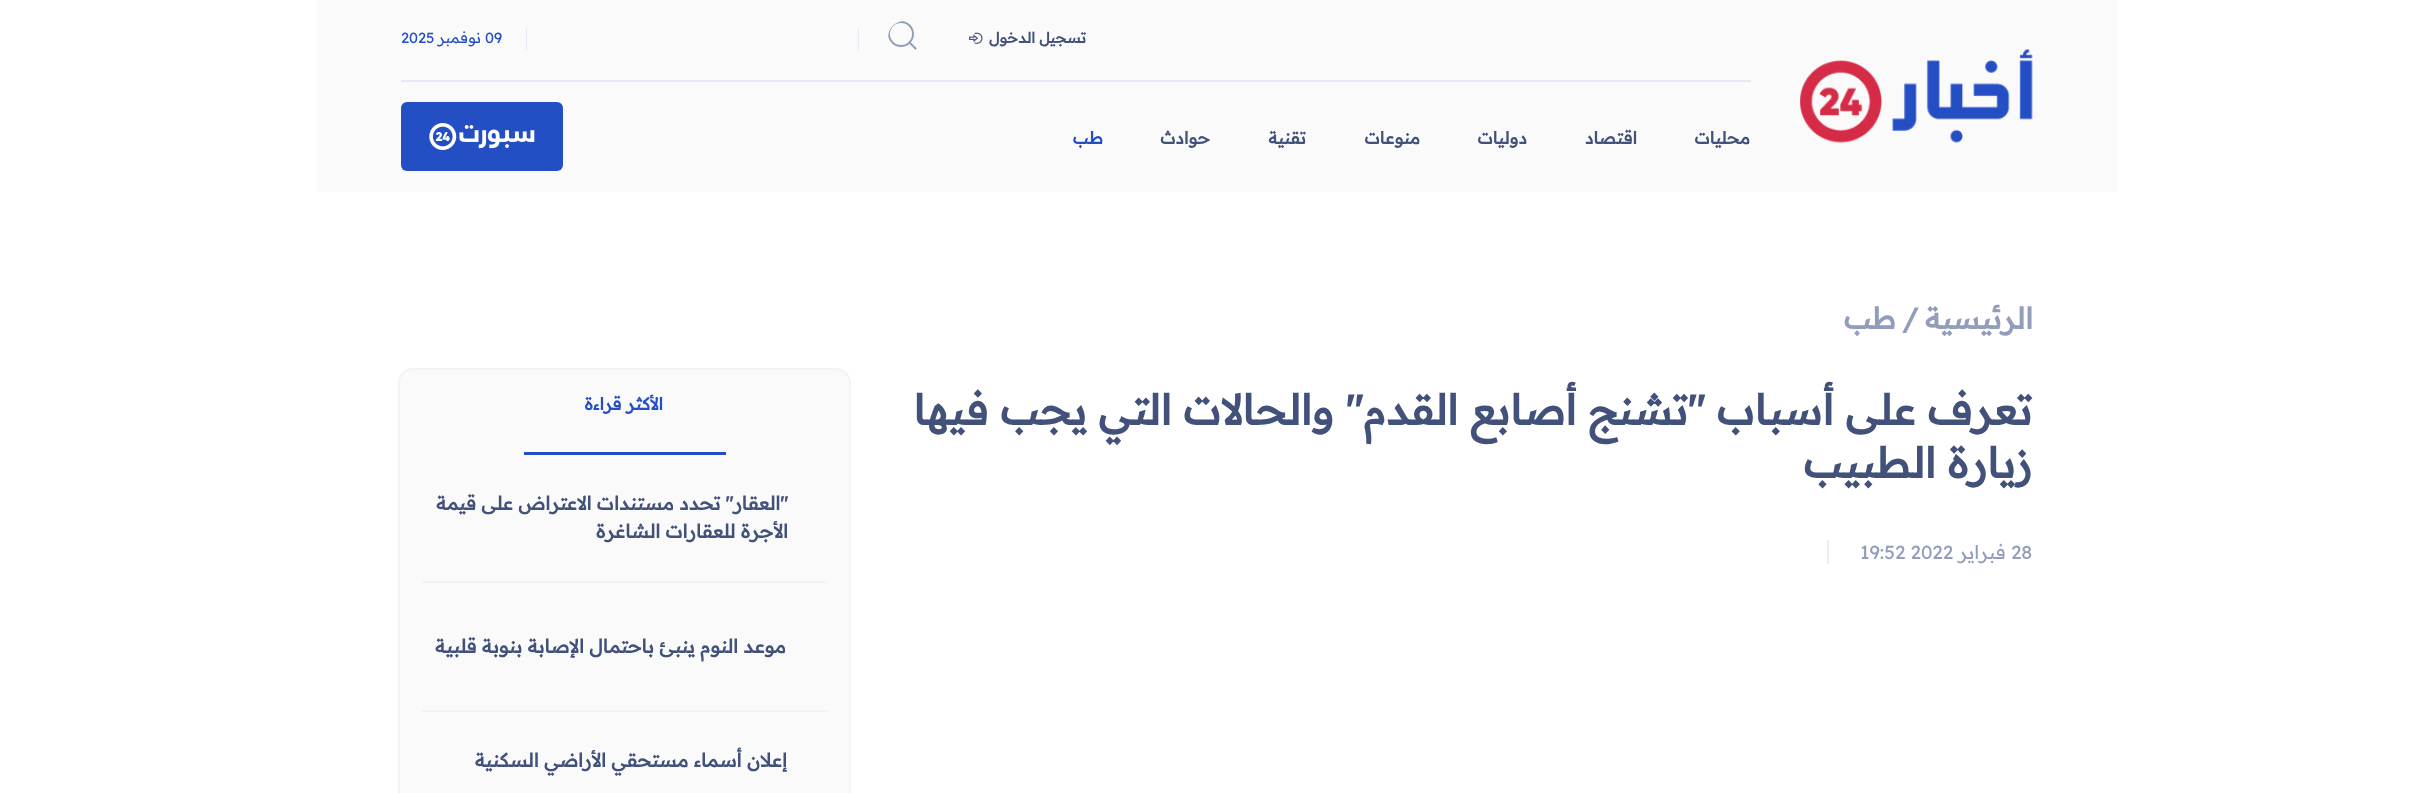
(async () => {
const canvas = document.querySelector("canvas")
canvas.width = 2433
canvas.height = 793
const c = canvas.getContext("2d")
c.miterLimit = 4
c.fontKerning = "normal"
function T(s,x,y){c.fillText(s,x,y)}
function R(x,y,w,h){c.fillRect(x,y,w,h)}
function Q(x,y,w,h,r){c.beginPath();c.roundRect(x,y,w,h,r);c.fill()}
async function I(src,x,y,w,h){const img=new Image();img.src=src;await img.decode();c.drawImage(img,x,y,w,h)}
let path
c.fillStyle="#fff"
R(0,0,2433,793)
c.fillStyle="#fafafa"
R(317,0,1800,192)
await I("1.png",1800,49,233,94)
c.fillStyle="#e5e9f5"
R(401,80,1350,2)
c.direction="rtl"
c.font="bold 14.75px Readex Pro"
c.fillStyle="#41517a"
T("تسجيل الدخول",1086,43)
await I("2.png",969,32,14,12)
c.save()
c.beginPath()
c.roundRect(888,21,33,33,16.5)
c.clip()
c.beginPath()
c.arc(901,34,12,0,7)
c.strokeStyle="#929dbb"
c.lineWidth=1.9
c.stroke()
path = new Path2D("M909.5 42.5l7.5 7.5")
c.lineCap="round"
c.stroke(path)
c.restore()
c.direction="ltr"
c.font="24px Liberation Serif"
c.fillStyle="#e5e9f5"
T("|",856,45)
T("|",524,45)
c.font="14.75px Readex Pro"
c.fillStyle="#234ec4"
T("09",485,43)
c.direction="rtl"
T("نوفمبر",481,43)
c.direction="ltr"
T("2025",401,43)
c.direction="rtl"
c.font="bold 17px Readex Pro"
c.fillStyle="#41517a"
T("محليات",1750,144)
T("اقتصاد",1637,144)
T("دوليات",1527,144)
T("منوعات",1420,144)
T("تقنية",1306,144)
T("حوادث",1210,144)
c.fillStyle="#234ec4"
T("طب",1103,144)
Q(401,102,162,69,6)
await I("3.png",429,123,106,27)
c.font="bold 29.5px Readex Pro"
c.fillStyle="#929dbb"
T("الرئيسية",2033,329)
c.direction="ltr"
T("/",1902,329)
c.direction="rtl"
T("طب",1896,329)
c.font="bold 42px Readex Pro"
c.fillStyle="#41517a"
T("تعرف على أسباب \"تشنج أصابع القدم\" والحالات التي يجب فيها",2032,425)
T("زيارة الطبيب",2032,478)
c.direction="ltr"
c.font="18.9px Readex Pro"
c.fillStyle="#929dbb"
T("28",2011,559)
c.direction="rtl"
T("فبراير",2006,559)
c.direction="ltr"
T("19:52 2022",1860,559)
c.fillStyle="#e9edf9"
R(1827,540,2,24)
c.fillStyle="#fafafa"
c.beginPath()
c.roundRect(399,369,451,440,14)
c.fill()
c.strokeStyle="#f1f3f8"
c.lineWidth=2
c.stroke()
c.fillStyle="#234ec4"
R(524,452,202,3)
c.direction="rtl"
c.font="bold 17px Readex Pro"
T("الأكثر قراءة",663,410)
c.fillStyle="#f1f3f8"
R(422,581,405,2)
c.font="bold 18.9px Readex Pro"
c.fillStyle="#41517a"
T("\"العقار\" تحدد مستندات الاعتراض على قيمة",788,510)
T("الأجرة للعقارات الشاغرة",788,538)
c.fillStyle="#f1f3f8"
R(422,710,405,2)
c.fillStyle="#41517a"
T("موعد النوم ينبئ باحتمال الإصابة بنوبة قلبية",786,653)
T("إعلان أسماء مستحقي الأراضي السكنية",787,767)
})()
